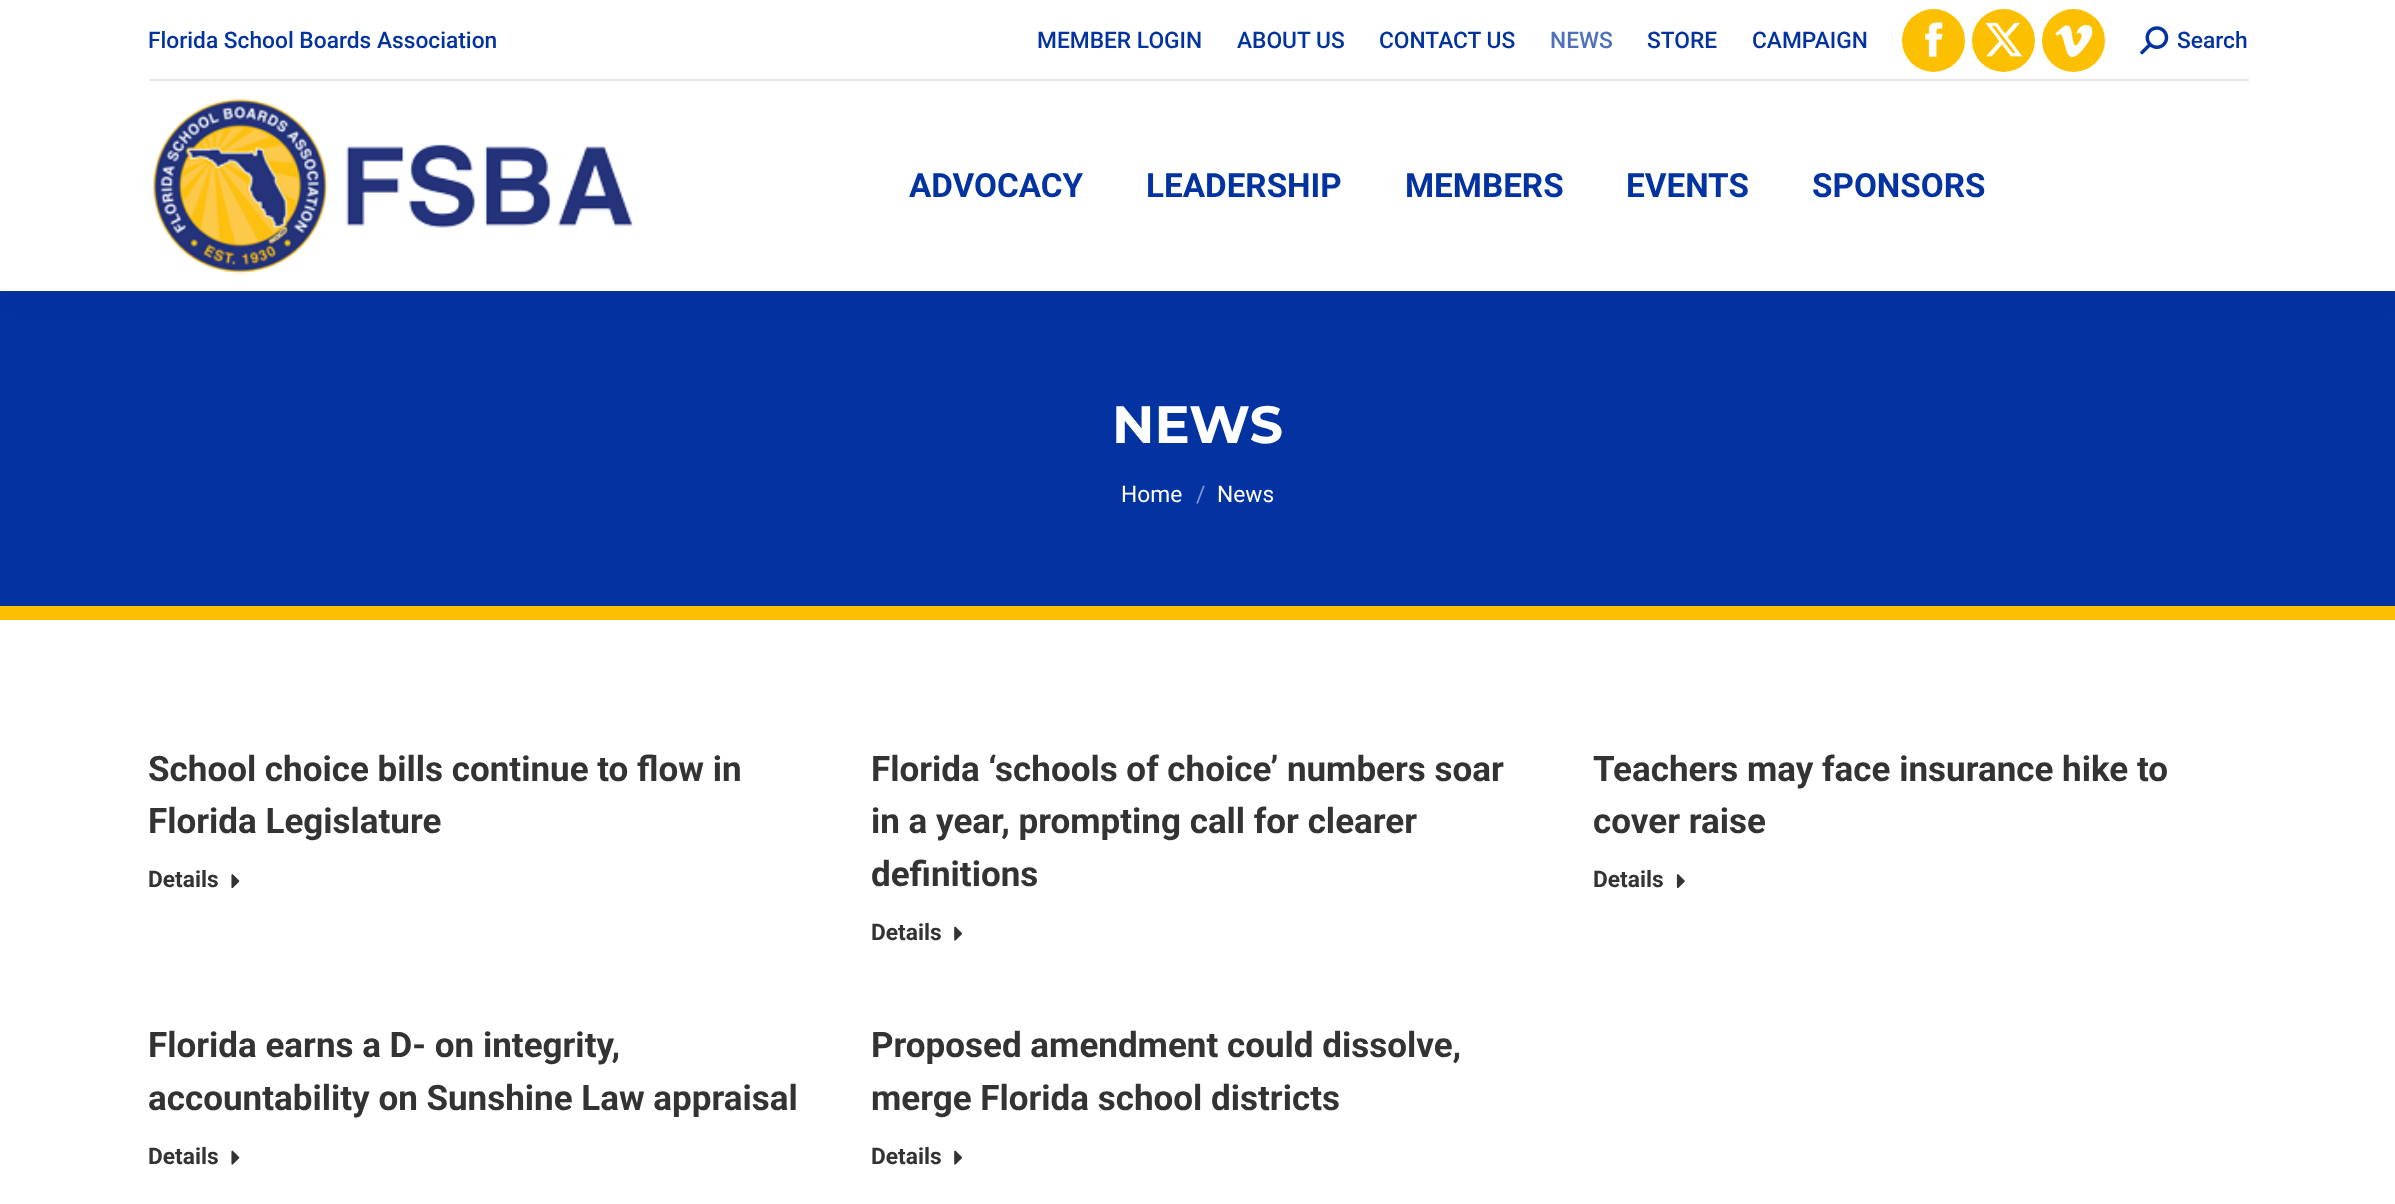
(async () => {
const canvas = document.querySelector("canvas")
canvas.width = 2395
canvas.height = 1204
const c = canvas.getContext("2d")
c.miterLimit = 4
c.fontKerning = "normal"
function T(s,x,y){c.fillText(s,x,y)}
function R(x,y,w,h){c.fillRect(x,y,w,h)}
async function I(src,x,y,w,h){const img=new Image();img.src=src;await img.decode();c.drawImage(img,x,y,w,h)}
c.fillStyle="#fff"
R(0,0,2395,1204)
c.fillStyle="#0333a1"
R(0,291,2395,315)
c.fillStyle="#00000012"
c.filter="blur(13px)"
c.beginPath()
c.rect(-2,-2,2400,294)
c.fill()
c.filter="none"
c.fillStyle="#fff"
R(0,0,2395,291)
c.font="500 22.75px Roboto"
c.fillStyle="#0333a1"
T("Florida School Boards Association",148,48)
T("MEMBER LOGIN",1037,48)
T("ABOUT US",1237,48)
T("CONTACT US",1379,48)
c.fillStyle="#4f70bd"
T("NEWS",1550,48)
c.fillStyle="#0333a1"
T("STORE",1647,48)
T("CAMPAIGN",1752,48)
c.fillStyle="#fdc000"
c.beginPath()
c.arc(1933.5,40.5,31.5,0,7)
c.fill()
await I("1.png",1925,22,18,35)
c.beginPath()
c.arc(2003.5,40.5,31.5,0,7)
c.fill()
await I("2.png",1985,22,38,35)
c.beginPath()
c.arc(2073.5,40.5,31.5,0,7)
c.fill()
await I("3.png",2055,25,38,32)
await I("4.png",2140,26,29,29)
c.fillStyle="#0333a1"
T("Search",2177,48)
c.fillStyle="#e7e7e7"
R(149,79,2100,2)
await I("5.png",152,99,481,175)
c.font="bold 33.25px Roboto"
c.fillStyle="#0333a1"
T("ADVOCACY",909,197)
T("LEADERSHIP",1146,197)
T("MEMBERS",1405,197)
T("EVENTS",1626,197)
T("SPONSORS",1812,197)
c.fillStyle="#fdc000"
R(0,606,2395,14)
c.font="bold 52.5px Montserrat"
c.fillStyle="#fff"
T("NEWS",1112,443)
c.font="22.75px Roboto"
T("Home",1121,502)
c.fillStyle="#8199d0"
T("/",1196,502)
c.fillStyle="#fff"
T("News",1217,502)
c.font="bold 35px Roboto"
c.fillStyle="#333"
T("School choice bills continue to flow in",148,781)
T("Florida Legislature",148,833)
c.font="bold 22.75px Roboto"
T("Details",148,887)
await I("6.png",231,874,9,15)
c.font="bold 35px Roboto"
T("Florida ‘schools of choice’ numbers soar",871,781)
T("in a year, prompting call for clearer",871,833)
T("definitions",871,886)
c.font="bold 22.75px Roboto"
T("Details",871,940)
await I("7.png",954,926,8,15)
c.font="bold 35px Roboto"
T("Teachers may face insurance hike to",1593,781)
T("cover raise",1593,833)
c.font="bold 22.75px Roboto"
T("Details",1593,887)
await I("8.png",1676,874,9,15)
c.font="bold 35px Roboto"
T("Florida earns a D- on integrity,",148,1057)
T("accountability on Sunshine Law appraisal",148,1110)
c.font="bold 22.75px Roboto"
T("Details",148,1164)
await I("9.png",231,1150,9,15)
c.font="bold 35px Roboto"
T("Proposed amendment could dissolve,",871,1057)
T("merge Florida school districts",871,1110)
c.font="bold 22.75px Roboto"
T("Details",871,1164)
await I("7.png",954,1150,8,15)
})()
